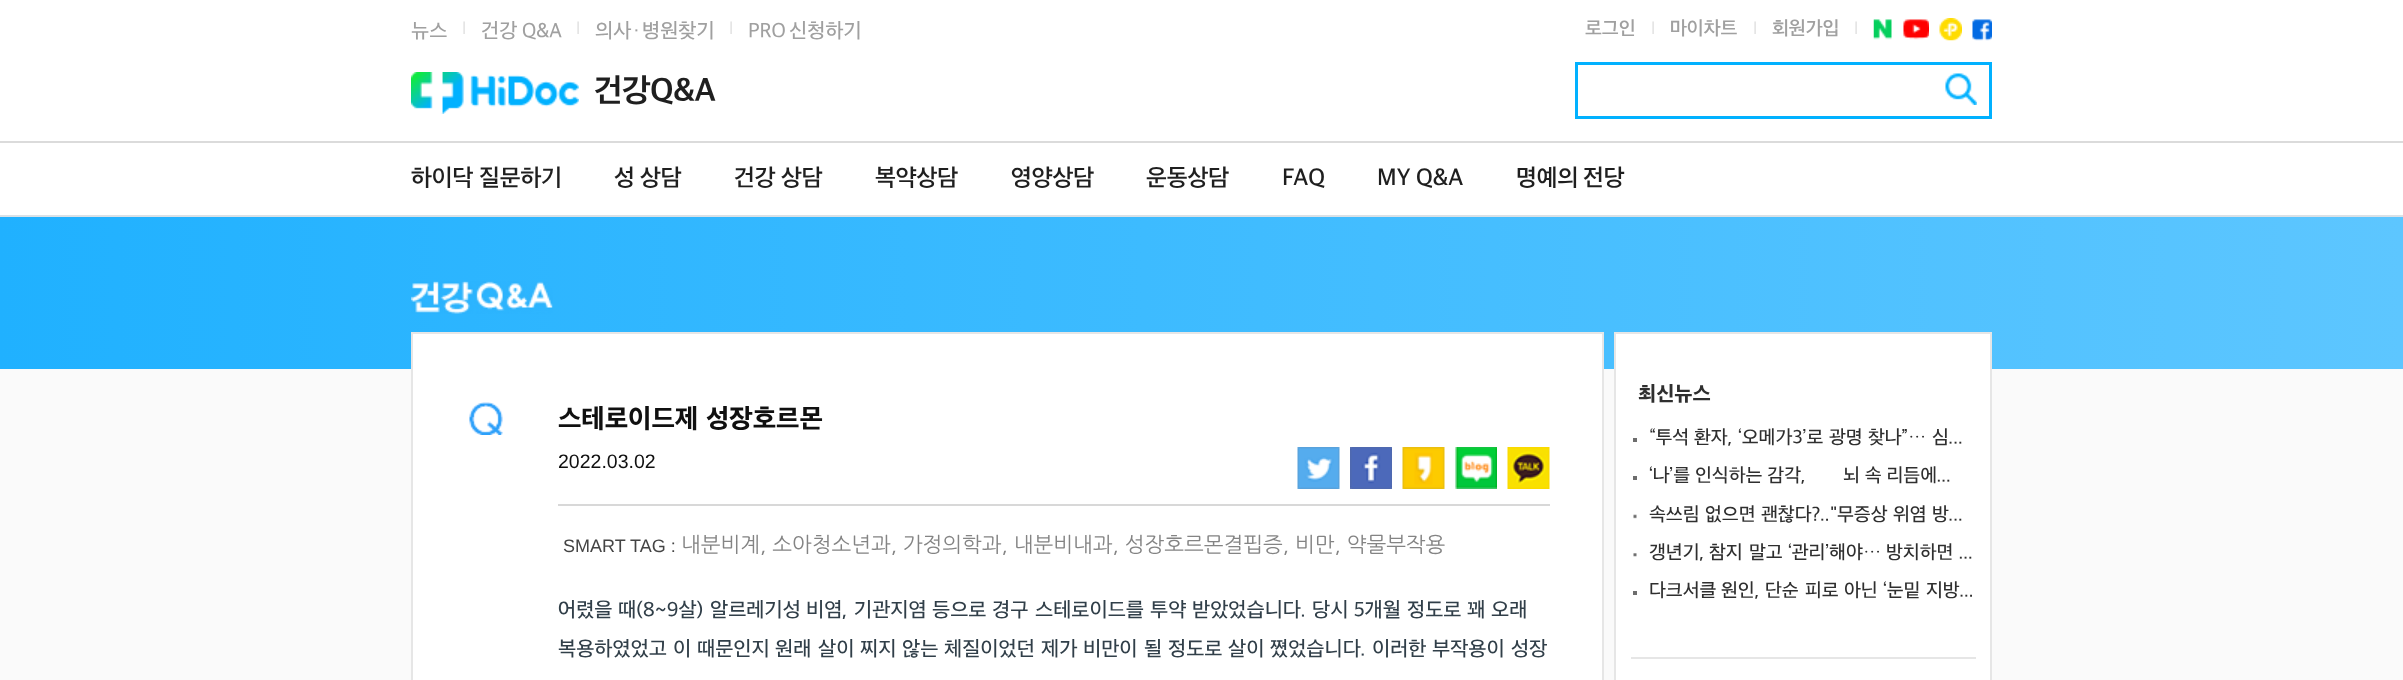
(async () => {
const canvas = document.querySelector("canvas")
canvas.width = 2403
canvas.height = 680
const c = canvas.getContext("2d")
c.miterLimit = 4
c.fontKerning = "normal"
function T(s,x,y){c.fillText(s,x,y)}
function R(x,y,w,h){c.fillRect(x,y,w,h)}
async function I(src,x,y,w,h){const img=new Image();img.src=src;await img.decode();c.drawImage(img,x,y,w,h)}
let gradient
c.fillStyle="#fff"
R(0,0,2403,680)
c.font="500 21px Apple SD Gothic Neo"
c.fillStyle="#a0a0a0"
T("뉴스",411,38)
c.font="500 15px Apple SD Gothic Neo"
c.fillStyle="#d9d9d9"
T("|",462,33)
c.font="500 21px Apple SD Gothic Neo"
c.fillStyle="#a0a0a0"
T("건강",481,38)
T("Q&A",522,38)
c.font="500 15px Apple SD Gothic Neo"
c.fillStyle="#d9d9d9"
T("|",576,33)
c.font="500 21px Apple SD Gothic Neo"
c.fillStyle="#a0a0a0"
T("의사",595,38)
c.font="21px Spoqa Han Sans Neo"
T("·",631,38)
c.font="500 21px Apple SD Gothic Neo"
T("병원찾기",642,38)
c.font="500 15px Apple SD Gothic Neo"
c.fillStyle="#d9d9d9"
T("|",729,33)
c.font="500 21px Apple SD Gothic Neo"
c.fillStyle="#a0a0a0"
T("PRO",748,38)
T("신청하기",789,38)
c.font="600 19.5px Apple SD Gothic Neo"
T("로그인",1585,35)
c.font="500 15px Apple SD Gothic Neo"
c.fillStyle="#d9d9d9"
T("|",1651,33)
c.font="600 19.5px Apple SD Gothic Neo"
c.fillStyle="#a0a0a0"
T("마이차트",1670,35)
c.font="500 15px Apple SD Gothic Neo"
c.fillStyle="#d9d9d9"
T("|",1753,33)
c.font="600 19.5px Apple SD Gothic Neo"
c.fillStyle="#a0a0a0"
T("회원가입",1772,35)
c.font="500 15px Apple SD Gothic Neo"
c.fillStyle="#d9d9d9"
T("|",1854,33)
await I("1.png",1873,19,19,21)
await I("2.png",1903,19,26,21)
await I("3.png",1939,18,23,23)
await I("4.png",1972,19,20,22)
c.fillStyle="#dbdbdb"
R(0,141,2403,2)
await I("5.png",411,72,168,42)
c.letterSpacing="-0.5px"
c.font="bold 33px Apple SD Gothic Neo"
c.fillStyle="#1f1f1f"
T("건강Q&A",594,102)
c.strokeStyle="#01b1ff"
c.lineWidth=3
c.strokeRect(1576.5,63.5,414,54)
await I("6.png",1945,73,32,32)
c.letterSpacing="0px"
c.font="600 24px Apple SD Gothic Neo"
T("하이닥",411,186)
T("질문하기",479,186)
T("성",614,186)
T("상담",640,186)
T("건강",734,186)
T("상담",781,186)
T("복약상담",875,186)
T("영양상담",1011,186)
T("운동상담",1146,186)
T("FAQ",1282,186)
T("MY",1377,186)
T("Q&A",1416,186)
T("명예의",1516,186)
T("전당",1583,186)
c.fillStyle="#dae1e6"
R(0,215,2403,2)
c.fillStyle="#fafafa"
R(0,369,2403,311)
gradient = c.createLinearGradient(0,293,2403,292)
gradient.addColorStop(0,"#20b1ff")
gradient.addColorStop(1,"#5dc6ff")
c.fillStyle = gradient
R(0,217,2403,152)
await I("7.png",411,281,142,33)
c.fillStyle="#fff"
c.beginPath()
c.rect(412,333,1191,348)
c.fill()
c.strokeStyle="#e6e6e6"
c.lineWidth=2
c.stroke()
await I("8.png",469,402,34,33)
c.font="800 27px Apple SD Gothic Neo"
c.fillStyle="#101010"
T("스테로이드제",558,428)
T("성장호르몬",706,428)
c.font="19.5px Liberation Sans"
T("2022.03.02",558,468)
await I("9.png",1297,447,43,42)
await I("10.png",1350,447,42,42)
await I("11.png",1402,447,43,42)
await I("12.png",1455,447,42,42)
await I("13.png",1507,447,43,42)
c.fillStyle="#d8d8d8"
R(558,504,992,2)
c.font="18px Liberation Sans"
c.fillStyle="#444"
T("SMART TAG :",563,552)
c.font="21px NanumGothic"
c.fillStyle="#848484"
T("내분비계, 소아청소년과, 가정의학과, 내분비내과, 성장호르몬결핍증, 비만, 약물부작용",681,552)
c.font="500 21px Apple SD Gothic Neo"
c.fillStyle="#313f49"
T("어렸을",558,617)
T("때(8~9살)",618,617)
T("알르레기성",710,617)
T("비염,",806,617)
T("기관지염",854,617)
T("등으로",932,617)
T("경구",992,617)
T("스테로이드를",1035,617)
T("투약",1150,617)
T("받았었습니다.",1192,617)
T("당시",1312,617)
T("5개월",1354,617)
T("정도로",1407,617)
T("꽤",1467,617)
T("오래",1491,617)
T("복용하였었고",558,656)
T("이",673,656)
T("때문인지",697,656)
T("원래",775,656)
T("살이",818,656)
T("찌지",860,656)
T("않는",902,656)
T("체질이었던",944,656)
T("제가",1041,656)
T("비만이",1083,656)
T("될",1144,656)
T("정도로",1168,656)
T("살이",1228,656)
T("쪘었습니다.",1270,656)
T("이러한",1372,656)
T("부작용이",1432,656)
T("성장",1511,656)
c.fillStyle="#fff"
c.beginPath()
c.rect(1615,333,376,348)
c.fill()
c.stroke()
c.fillStyle="#e6e6e6"
R(1631,657,345,2)
c.font="800 21px Apple SD Gothic Neo"
c.fillStyle="#2f2f2f"
T("최신뉴스",1638,401)
c.fillStyle="#6d6d6d"
R(1633,438,4,4)
c.font="500 19.5px Apple SD Gothic Neo"
c.fillStyle="#2f2f2f"
T("“투석",1649,444)
T("환자,",1694,444)
T("‘오메가3’로",1738,444)
T("광명",1829,444)
T("찾나”",1868,444)
c.font="19.5px NanumGothic"
T("…",1908,444)
c.font="500 19.5px Apple SD Gothic Neo"
T("심...",1932,444)
c.fillStyle="#6d6d6d"
R(1633,476,4,4)
c.fillStyle="#2f2f2f"
T("‘나’를 인식하는 감각,",1649,482)
T("뇌 속 리듬에...",1843,482)
await I("14.png",1633,514,4,5)
T("속쓰림",1649,521)
T("없으면",1705,521)
T("괜찮다?..\"무증상",1761,521)
T("위염",1893,521)
T("방...",1932,521)
await I("15.png",1633,553,4,4)
T("갱년기,",1649,559)
T("참지",1709,559)
T("말고",1749,559)
T("‘관리’해야",1788,559)
c.font="19.5px NanumGothic"
T("…",1863,559)
c.font="500 19.5px Apple SD Gothic Neo"
T("방치하면",1886,559)
T("...",1959,559)
c.fillStyle="#6d6d6d"
R(1633,591,4,4)
c.fillStyle="#2f2f2f"
T("다크서클",1649,597)
T("원인,",1721,597)
T("단순",1765,597)
T("피로",1805,597)
T("아닌",1844,597)
T("‘눈밑",1883,597)
T("지방...",1926,597)
})()
